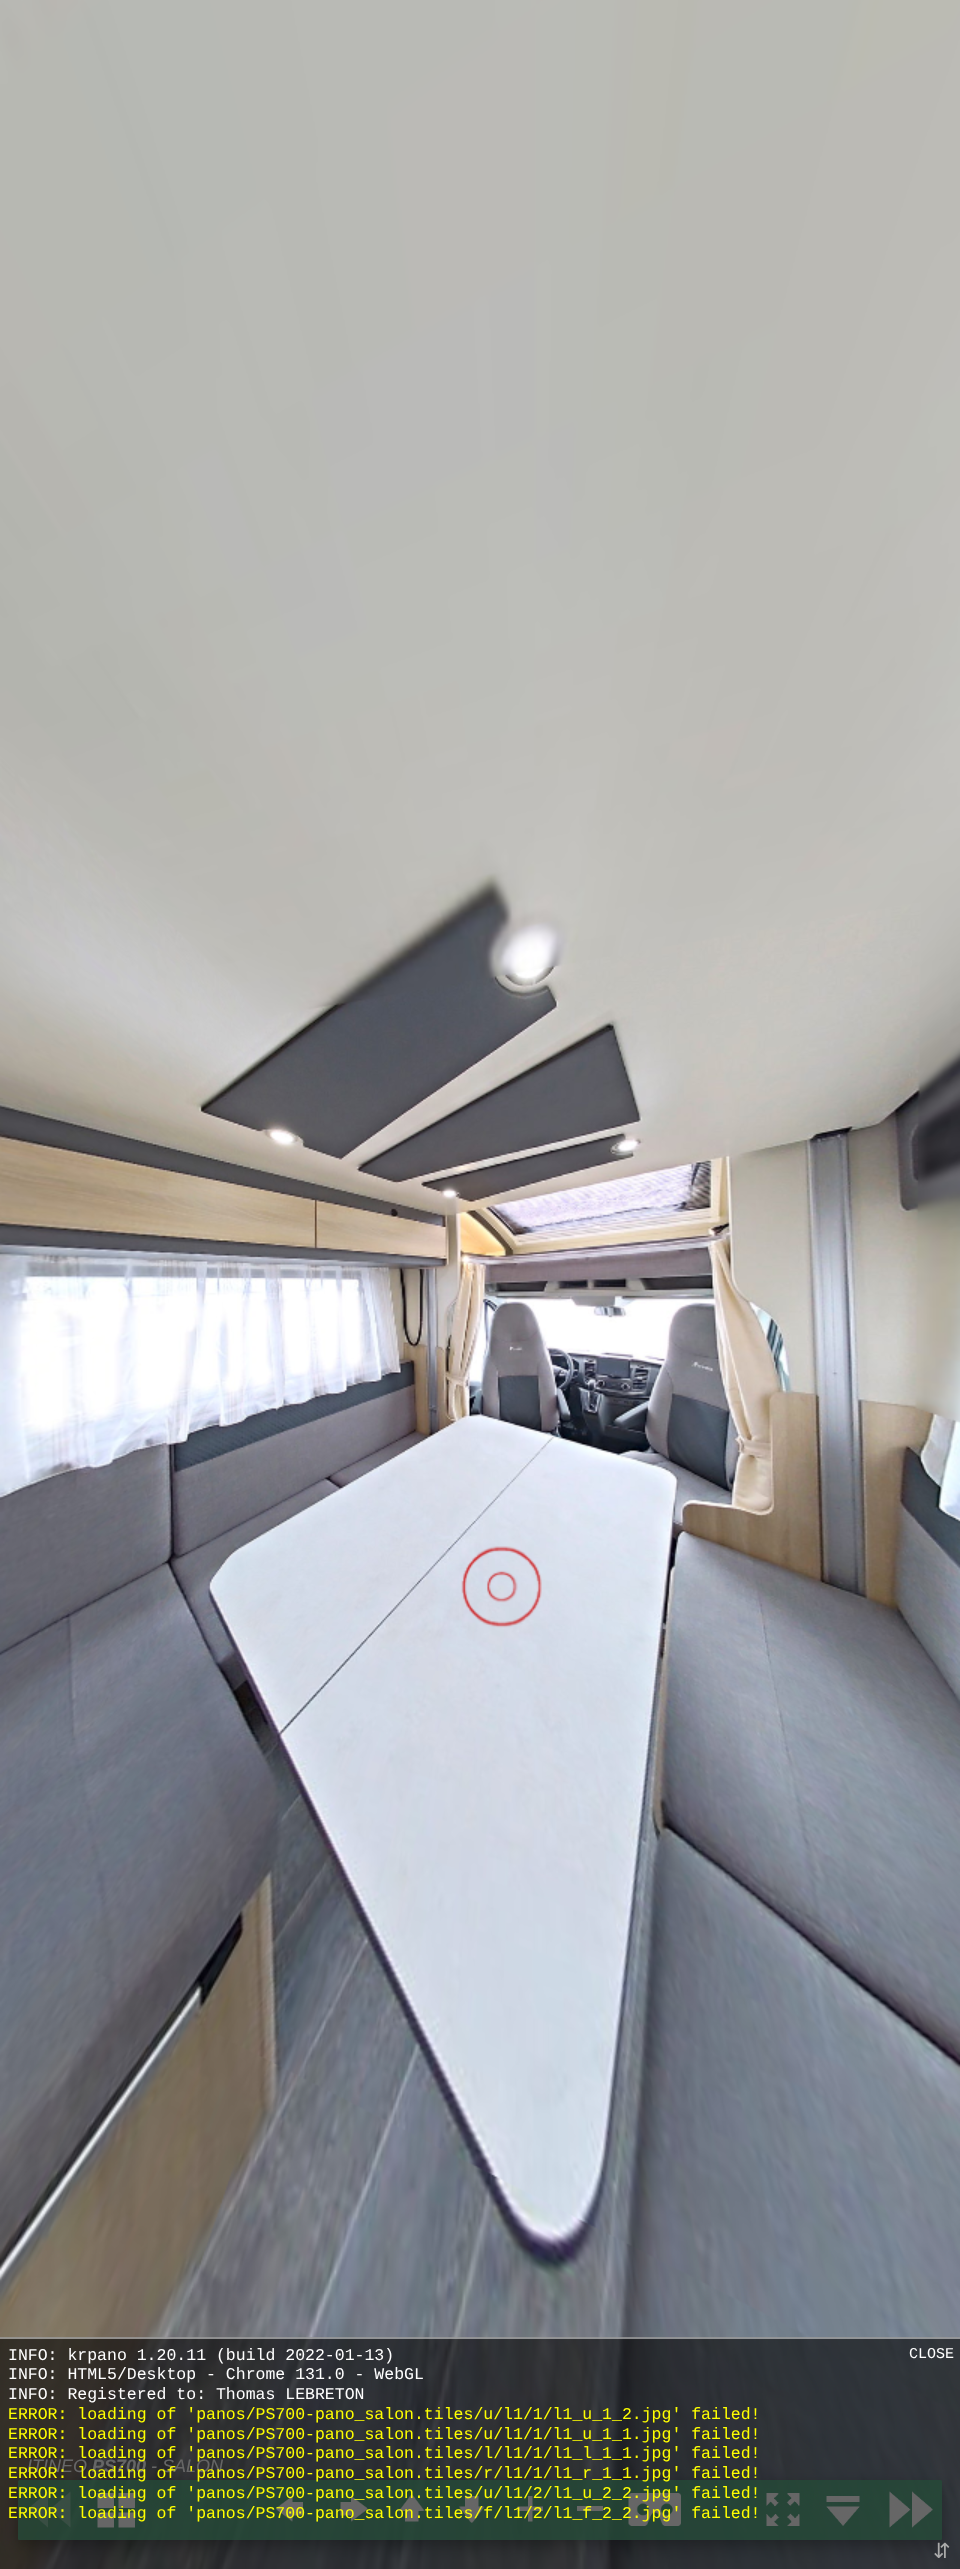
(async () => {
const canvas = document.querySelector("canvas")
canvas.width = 960
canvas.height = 2569
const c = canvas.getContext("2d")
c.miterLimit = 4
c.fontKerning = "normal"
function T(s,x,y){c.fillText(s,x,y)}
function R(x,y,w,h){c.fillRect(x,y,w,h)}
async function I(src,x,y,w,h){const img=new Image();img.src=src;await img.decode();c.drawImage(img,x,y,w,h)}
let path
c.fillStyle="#fff"
R(0,0,960,2569)
await I("1.png",0,0,960,2569)
c.save()
c.beginPath()
c.rect(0,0,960,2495)
c.clip()
path = new Path2D("M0 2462h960v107h-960zm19.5 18h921c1 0 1.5 .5 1.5 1.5v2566c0 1-.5 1.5-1.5 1.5h-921c-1 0-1.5-.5-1.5-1.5v-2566c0-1 .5-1.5 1.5-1.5z")
c.clip(path,"evenodd")
c.fillStyle="#0000004d"
c.filter="blur(7.5px)"
c.beginPath()
c.roundRect(18,2486,924,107,1.5)
c.fill()
c.filter="none"
c.restore()
c.fillStyle="#5bb88bcc"
c.beginPath()
c.roundRect(18,2480,924,15,[1.5,1.5,0,0])
c.fill()
c.save()
c.beginPath()
c.rect(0,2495,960,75)
c.clip()
path = new Path2D("M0 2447h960v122h-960zm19.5 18h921c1 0 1.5 .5 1.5 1.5v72c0 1-.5 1.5-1.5 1.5h-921c-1 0-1.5-.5-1.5-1.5v-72c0-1 .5-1.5 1.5-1.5z")
c.clip(path,"evenodd")
c.fillStyle="#0000004d"
c.filter="blur(7.5px)"
c.beginPath()
c.roundRect(18,2471,924,75,1.5)
c.fill()
c.filter="none"
c.restore()
c.beginPath()
c.roundRect(18,2495,924,45,[0,0,1.5,1.5])
c.fill()
c.font="italic 18px Liberation Sans"
c.fillStyle="#fff"
T("ITINEO",27,2472)
c.font="italic bold 18px Liberation Sans"
T("PS700",92,2472)
c.font="italic 18px Liberation Sans"
T("- SALON",151,2472)
await I("2.png",27,2491,44,37)
await I("3.png",97,2493,38,35)
await I("4.png",276,2495,27,27)
await I("5.png",340,2495,28,27)
await I("6.png",398,2494,27,28)
await I("7.png",458,2496,27,27)
await I("8.png",517,2496,26,26)
R(577,2506,26,5)
await I("9.png",628,2493,53,33)
await I("10.png",766,2493,34,33)
await I("11.png",826,2496,34,30)
await I("12.png",889,2491,44,37)
c.fillStyle="#00000099"
R(0,2337,960,232)
c.fillStyle="#ffffff7a"
R(0,2337,960,2)
c.font="16.5px Liberation Mono"
c.fillStyle="#fff"
T("INFO: krpano 1.20.11 (build 2022-01-13)",8,2360)
T("INFO: HTML5/Desktop - Chrome 131.0 - WebGL",8,2379)
T("INFO: Registered to: Thomas LEBRETON",8,2399)
c.fillStyle="#ff0"
T("ERROR: loading of 'panos/PS700-pano_salon.tiles/u/l1/1/l1_u_1_2.jpg' failed!",8,2419)
T("ERROR: loading of 'panos/PS700-pano_salon.tiles/u/l1/1/l1_u_1_1.jpg' failed!",8,2439)
T("ERROR: loading of 'panos/PS700-pano_salon.tiles/l/l1/1/l1_l_1_1.jpg' failed!",8,2458)
T("ERROR: loading of 'panos/PS700-pano_salon.tiles/r/l1/1/l1_r_1_1.jpg' failed!",8,2478)
T("ERROR: loading of 'panos/PS700-pano_salon.tiles/u/l1/2/l1_u_2_2.jpg' failed!",8,2498)
T("ERROR: loading of 'panos/PS700-pano_salon.tiles/f/l1/2/l1_f_2_2.jpg' failed!",8,2518)
c.font="15px Liberation Mono"
c.fillStyle="#fff"
T("CLOSE",909,2358)
c.font="21px DejaVu Sans"
c.fillStyle="#aaa"
T("⇵",933,2558)
})()
